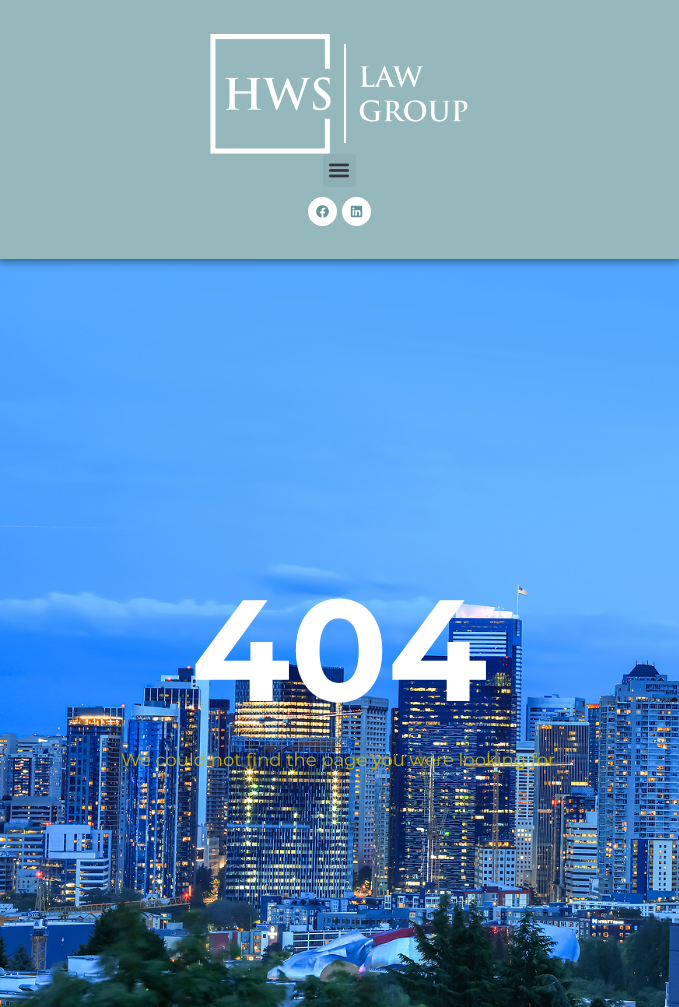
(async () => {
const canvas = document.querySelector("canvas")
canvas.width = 679
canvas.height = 1007
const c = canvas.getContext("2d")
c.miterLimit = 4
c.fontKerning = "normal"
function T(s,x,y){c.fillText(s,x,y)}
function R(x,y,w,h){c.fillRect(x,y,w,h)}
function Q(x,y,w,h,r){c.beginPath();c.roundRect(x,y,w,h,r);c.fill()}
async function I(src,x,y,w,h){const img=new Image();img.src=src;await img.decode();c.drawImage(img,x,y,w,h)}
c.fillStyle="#fff"
R(0,0,679,1007)
await I("5.png",0,259,679,748)
c.fillStyle="#00000080"
c.filter="blur(5px)"
c.beginPath()
c.rect(-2,-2,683,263)
c.fill()
c.filter="none"
c.fillStyle="#95b8bc"
R(0,0,679,259)
await I("1.png",210,34,258,120)
c.fillStyle="#8eafb3"
Q(323,154,33,33,3)
await I("2.png",329,163,20,15)
c.fillStyle="#fff"
c.beginPath()
c.arc(322.5,211.5,14.5,0,7)
c.fill()
await I("3.png",316,205,13,13)
c.beginPath()
c.arc(356.5,211.5,14.5,0,7)
c.fill()
await I("4.png",350,205,13,13)
c.font="bold 144px Montserrat"
T("404",191,701)
c.font="18px Montserrat"
c.fillStyle="#ccad02"
T("We could not find the page you were looking for.",121,766)
})()
